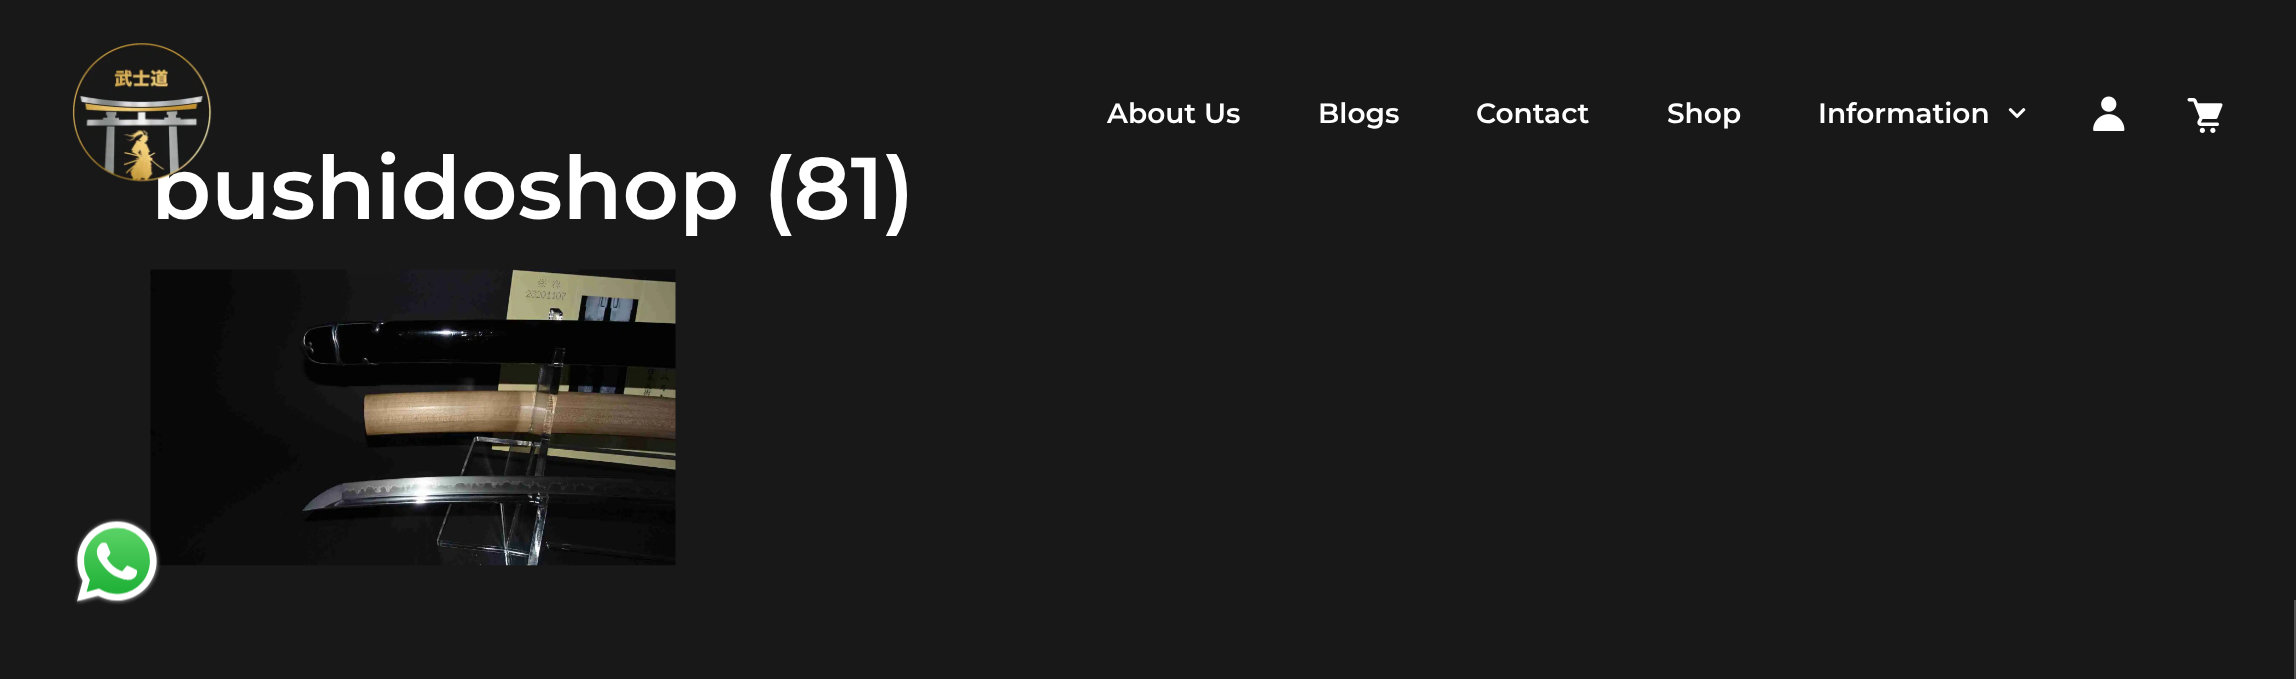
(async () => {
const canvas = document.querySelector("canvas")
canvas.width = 2296
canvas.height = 679
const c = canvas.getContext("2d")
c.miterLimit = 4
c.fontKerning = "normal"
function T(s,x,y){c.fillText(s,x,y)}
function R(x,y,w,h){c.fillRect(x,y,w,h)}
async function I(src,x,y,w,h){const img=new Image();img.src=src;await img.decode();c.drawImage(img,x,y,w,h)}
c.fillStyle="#181818"
R(0,0,2296,679)
c.font="600 87.5px Montserrat"
c.fillStyle="#fff"
T("bushidoshop (81)",151,219)
await I("1.png",72,43,140,139)
c.font="600 28px Montserrat"
T("About Us",1107,123)
T("Blogs",1318,123)
T("Contact",1476,123)
T("Shop",1667,123)
T("Information",1818,123)
await I("2.png",2008,108,18,10)
await I("3.png",2093,96,32,35)
await I("4.png",2187,98,36,35)
await I("5.png",150,269,526,297)
c.fillStyle="#4f4f4f"
R(2294,600,2,79)
await I("6.png",74,518,87,87)
})()
